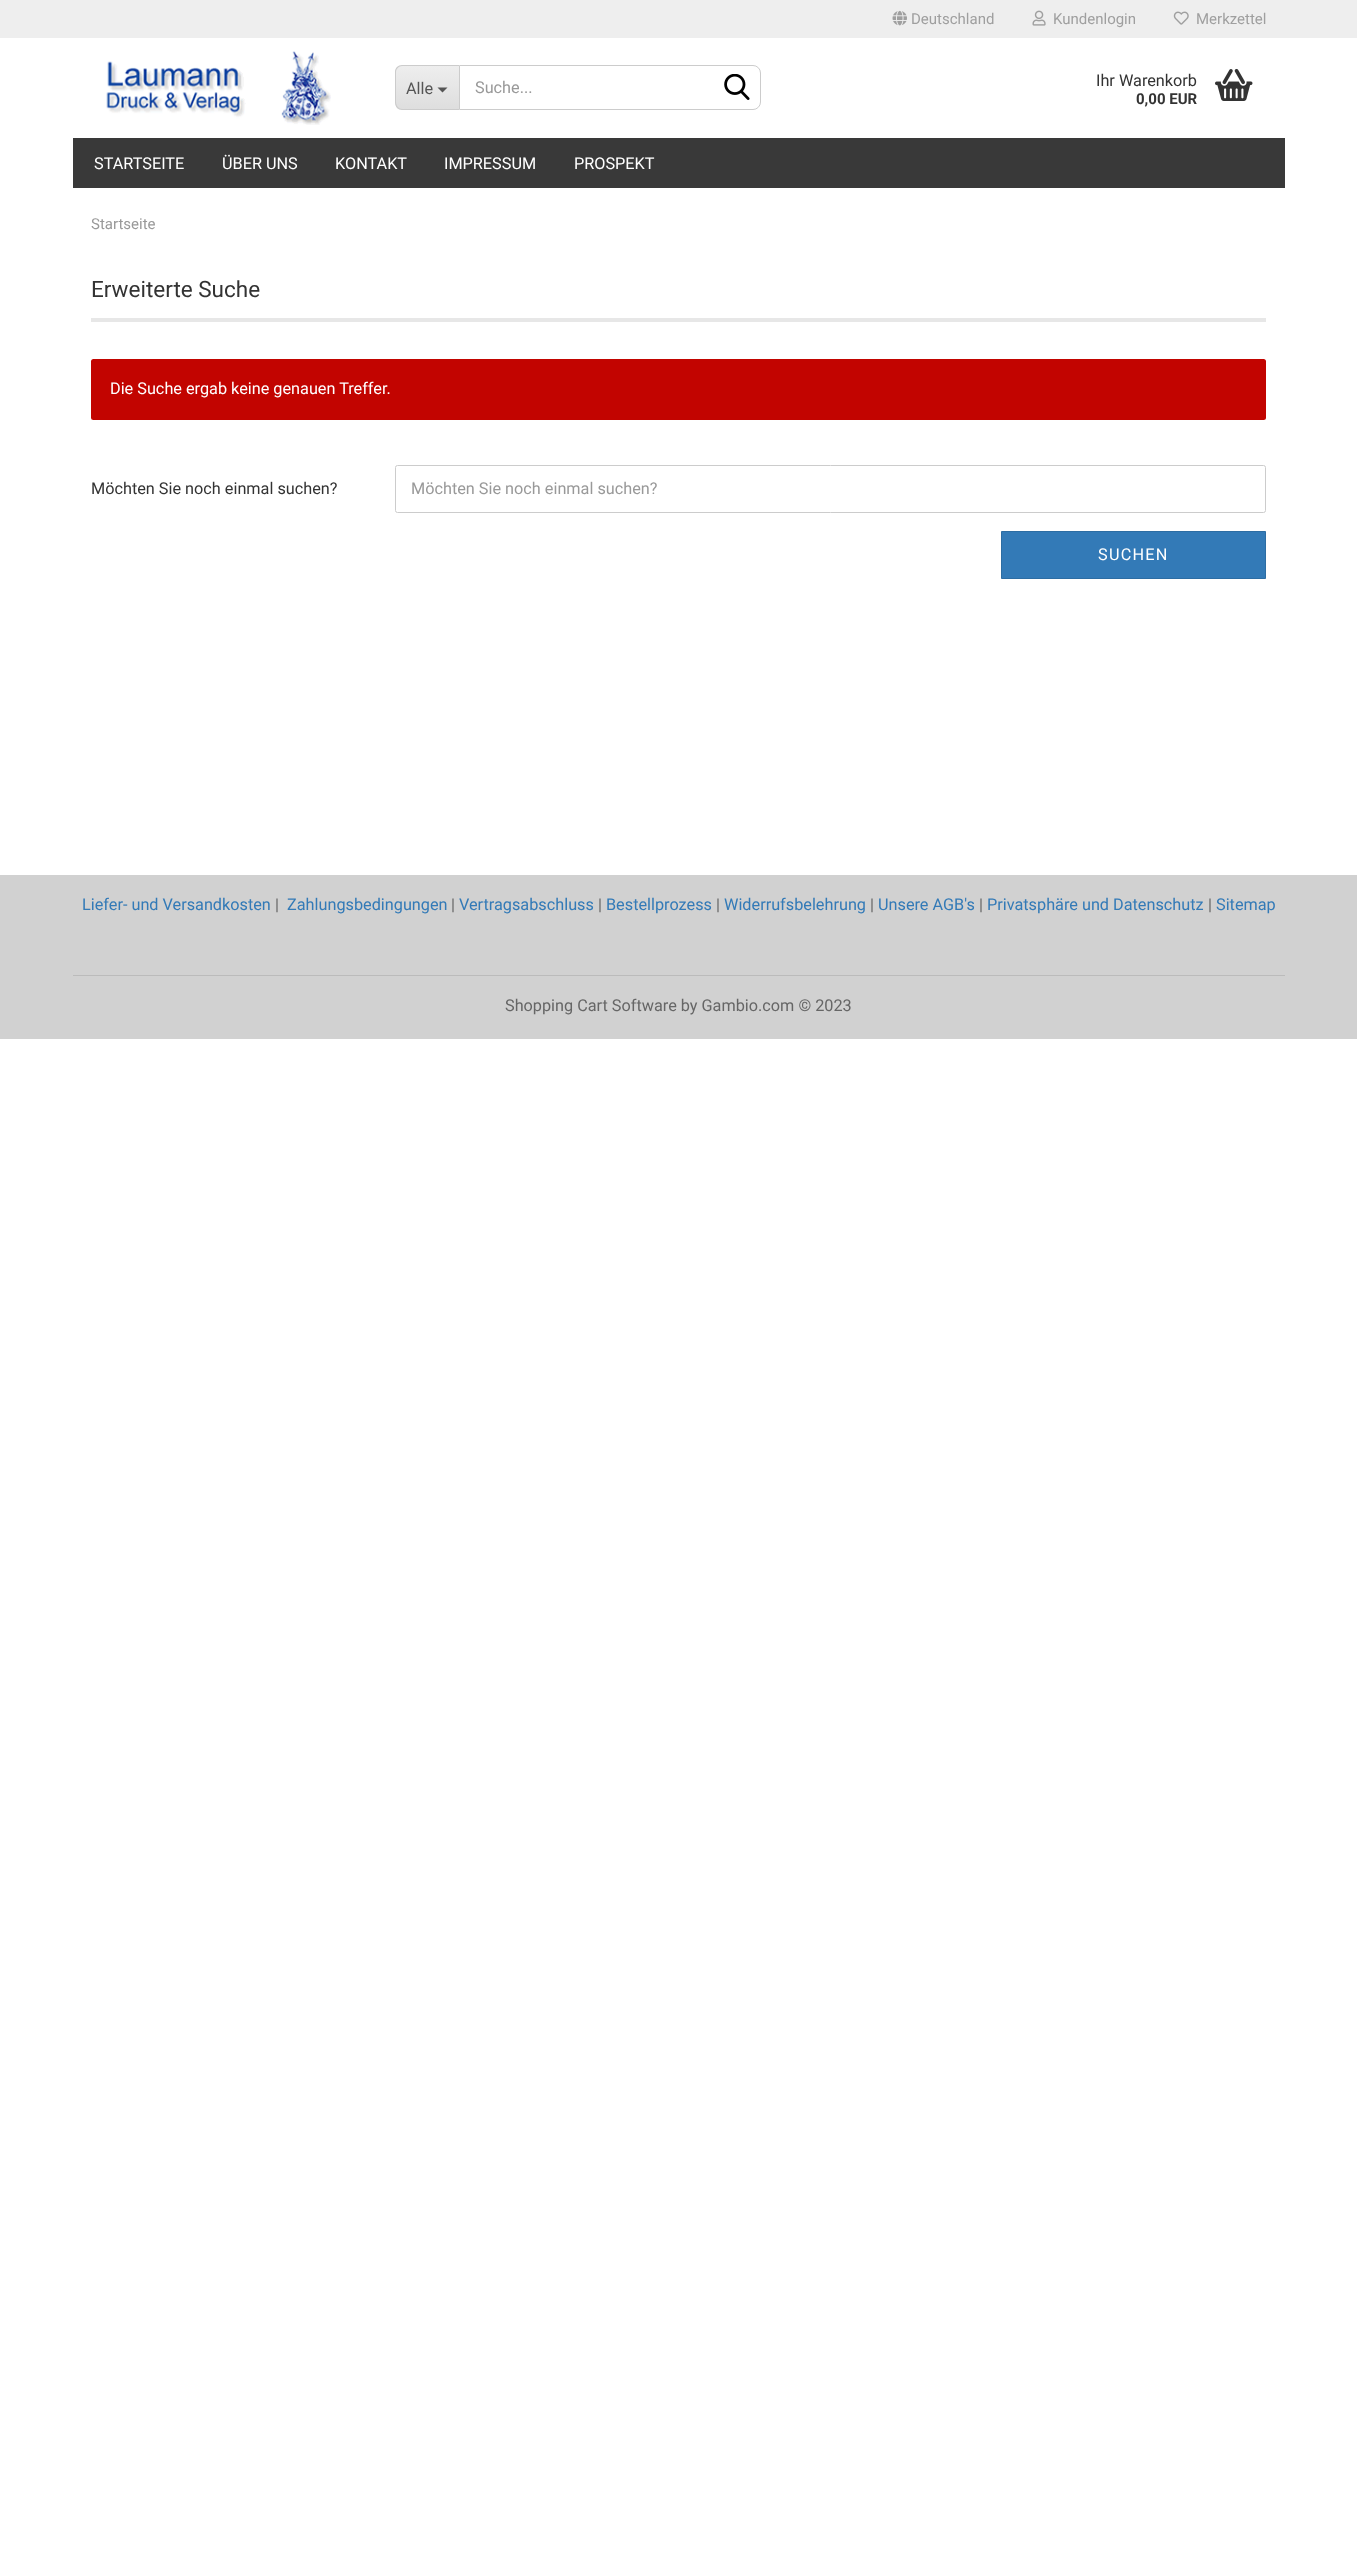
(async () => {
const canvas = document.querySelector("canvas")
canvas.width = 1357
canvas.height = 2561
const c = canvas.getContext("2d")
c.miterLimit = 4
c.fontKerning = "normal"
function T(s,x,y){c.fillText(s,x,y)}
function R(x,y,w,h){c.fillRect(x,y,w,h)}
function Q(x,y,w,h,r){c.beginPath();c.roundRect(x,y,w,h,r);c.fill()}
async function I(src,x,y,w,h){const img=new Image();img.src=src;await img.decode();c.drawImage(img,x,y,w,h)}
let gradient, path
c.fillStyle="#fff"
R(0,0,1357,2561)
c.fillStyle="#eee"
R(0,0,1357,38)
await I("1.png",892,10,15,16)
c.font="15px Roboto"
c.fillStyle="#9f9f9f"
T("Deutschland",911,24)
await I("2.png",1032,10,14,16)
T("Kundenlogin",1053,24)
await I("3.png",1173,11,16,14)
T("Merkzettel",1196,24)
await I("4.png",106,51,225,74)
c.save()
c.beginPath()
c.roundRect(395,65,64,45,[8,0,0,8])
c.clip()
gradient = c.createLinearGradient(428,66,428,109)
gradient.addColorStop(0,"#eee")
gradient.addColorStop(1,"#dedede")
c.fillStyle = gradient
R(395,66,64,43)
c.restore()
c.fillStyle="#ccc"
path = new Path2D("M402 65h57v45h-57c-4 0-7-3-7-8v-30c0-4 3-7 7-7zm0 1h57v43h-57c-3 0-6-3-6-7v-30c0-3 3-6 6-6z")
c.fill(path,"evenodd")
c.font="16.25px Roboto"
c.fillStyle="#555"
T("Alle",406,94)
path = new Path2D("M437.5 87.5h10l-5 5z")
c.fill(path)
c.beginPath()
c.roundRect(459.5,65.5,301,44,[0,7.5,7.5,0])
c.strokeStyle="#ccc"
c.stroke()
c.fillStyle="#999"
T("Suche...",475,93)
await I("5.png",724,74,26,26)
c.fillStyle="#333"
T("Ihr Warenkorb",1096,86)
c.font="bold 15px Roboto"
T("0,00 EUR",1136,104)
await I("6.png",1215,68,38,33)
c.fillStyle="#393939"
R(73,138,1212,50)
c.font="16.25px Roboto"
c.fillStyle="#fff"
T("STARTSEITE",94,169)
T("ÜBER UNS",222,169)
T("KONTAKT",335,169)
T("IMPRESSUM",444,169)
T("PROSPEKT",574,169)
c.font="15px Roboto"
c.fillStyle="#999"
T("Startseite",91,229)
c.fillStyle="#e7e7e7"
R(91,318,1175,4)
c.font="22.5px Roboto"
c.fillStyle="#333"
T("Erweiterte Suche",91,297)
c.fillStyle="#c20400"
Q(91,359,1175,61,2.5)
c.font="16.25px Roboto"
c.fillStyle="#fff"
T("Die Suche ergab keine genauen Treffer.",110,394)
c.fillStyle="#333"
T("Möchten Sie noch einmal suchen?",91,494)
c.beginPath()
c.roundRect(395.5,465.5,870,47,2)
c.stroke()
c.fillStyle="#999"
T("Möchten Sie noch einmal suchen?",411,494)
c.fillStyle="#337ab7"
c.beginPath()
c.rect(1001.5,531.5,264,47)
c.fill()
c.strokeStyle="#2d6da3"
c.stroke()
c.letterSpacing="1.25px"
c.fillStyle="#fff"
T("SUCHEN",1098,560)
c.fillStyle="#d1d1d1"
R(0,875,1357,164)
c.letterSpacing="0px"
c.fillStyle="#337ab7"
T("Liefer- und Versandkosten",82,910)
c.fillStyle="#666"
T("|",275,910)
c.fillStyle="#337ab7"
T("Zahlungsbedingungen",287,910)
c.fillStyle="#666"
T("|",451,910)
c.fillStyle="#337ab7"
T("Vertragsabschluss",459,910)
c.fillStyle="#666"
T("|",598,910)
c.fillStyle="#337ab7"
T("Bestellprozess",606,910)
c.fillStyle="#666"
T("|",716,910)
c.fillStyle="#337ab7"
T("Widerrufsbelehrung",724,910)
c.fillStyle="#666"
T("|",870,910)
c.fillStyle="#337ab7"
T("Unsere AGB's",878,910)
c.fillStyle="#666"
T("|",979,910)
c.fillStyle="#337ab7"
T("Privatsphäre und Datenschutz",987,910)
c.fillStyle="#666"
T("|",1208,910)
c.fillStyle="#337ab7"
T("Sitemap",1216,910)
c.fillStyle="#bbb"
R(73,975,1212,1)
c.fillStyle="#666"
T("Shopping Cart Software by Gambio.com © 2023",505,1011)
})()
